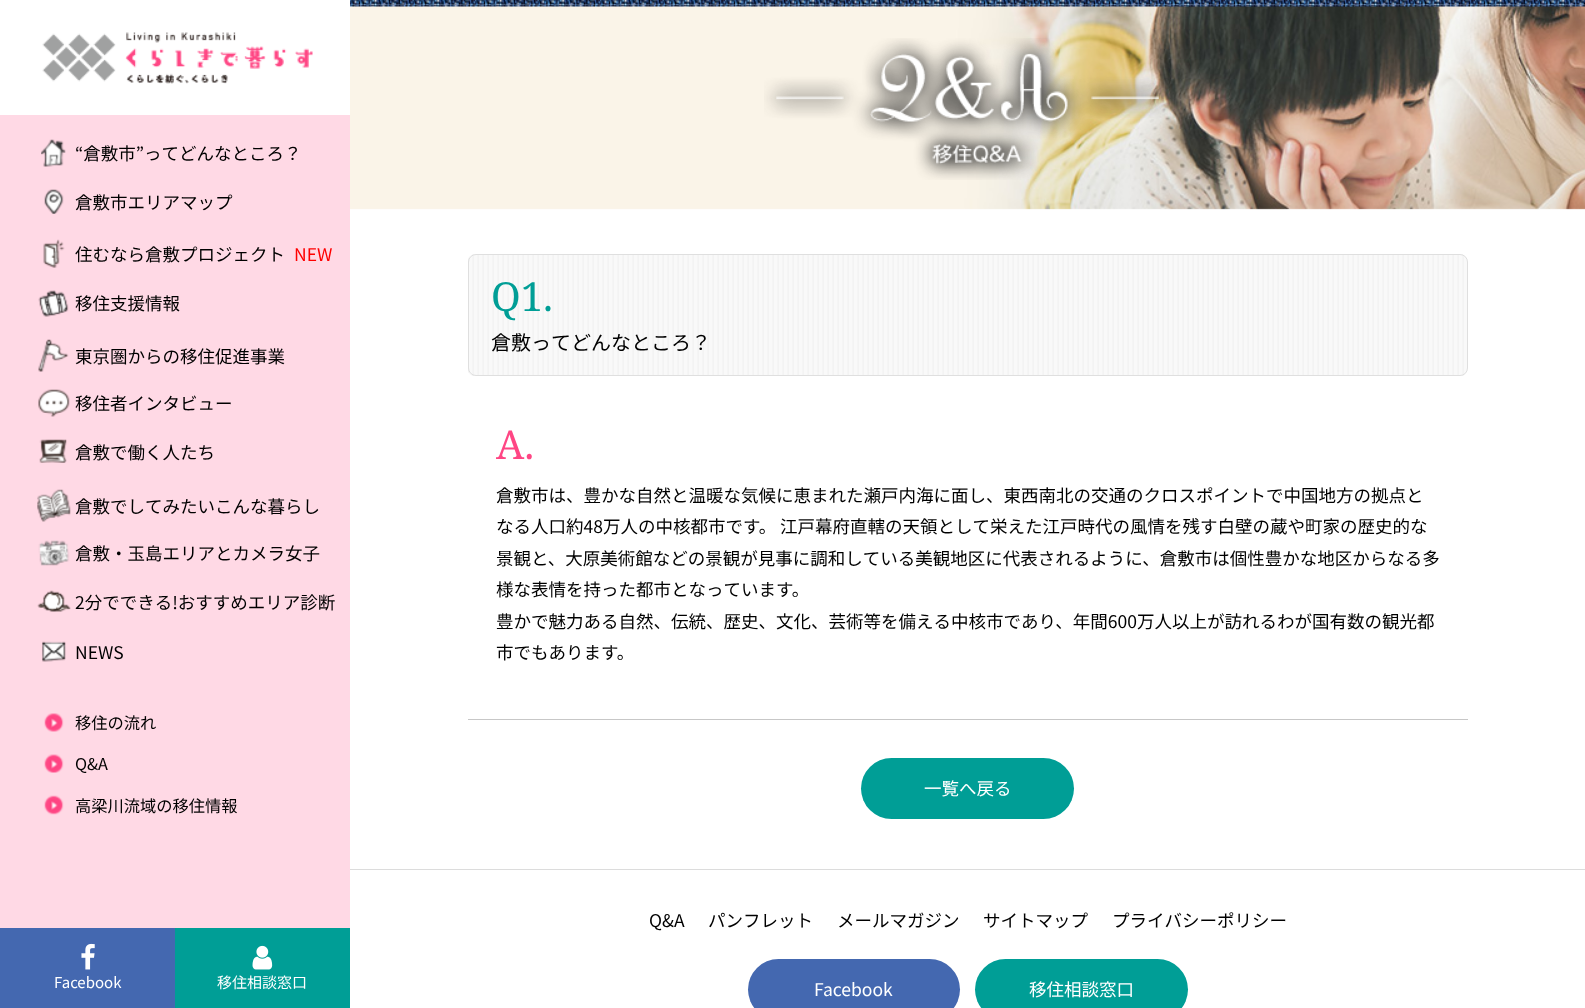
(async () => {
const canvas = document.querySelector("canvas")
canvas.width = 1585
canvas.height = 1008
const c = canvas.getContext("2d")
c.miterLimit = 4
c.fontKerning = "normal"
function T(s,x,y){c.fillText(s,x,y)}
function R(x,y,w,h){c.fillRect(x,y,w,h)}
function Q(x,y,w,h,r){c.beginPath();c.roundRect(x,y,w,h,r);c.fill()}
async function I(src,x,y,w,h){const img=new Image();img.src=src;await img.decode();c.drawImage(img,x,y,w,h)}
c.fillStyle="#fff"
R(0,0,1585,1008)
c.fillStyle="#ffd9e5"
R(0,115,350,813)
await I("1.png",42,32,271,52)
await I("2.png",41,139,25,28)
c.font="100 17.5px Noto Sans JP"
c.fillStyle="#000"
T("“倉敷市”ってどんなところ？",75,160)
await I("3.png",44,189,20,25)
T("倉敷市エリアマップ",75,209)
await I("4.png",43,239,22,29)
T("住むなら倉敷プロジェクト",75,261)
c.fillStyle="#f00"
T("NEW",294,261)
await I("5.png",38,290,31,27)
c.fillStyle="#000"
T("移住支援情報",75,310)
await I("6.png",38,339,31,33)
T("東京圏からの移住促進事業",75,363)
await I("7.png",38,389,32,28)
T("移住者インタビュー",75,410)
await I("8.png",39,439,28,24)
T("倉敷で働く人たち",75,459)
await I("9.png",37,489,34,33)
T("倉敷でしてみたいこんな暮らし",75,513)
await I("10.png",38,540,32,26)
T("倉敷・玉島エリアとカメラ女子",75,560)
await I("11.png",37,590,34,22)
T("2分でできる!おすすめエリア診断",75,609)
await I("12.png",42,641,24,21)
T("NEWS",75,659)
await I("13.png",44,713,20,19)
c.font="100 16.25px Noto Sans JP"
T("移住の流れ",75,729)
await I("14.png",44,754,20,19)
T("Q&A",75,770)
await I("15.png",44,795,20,20)
T("高梁川流域の移住情報",75,812)
c.fillStyle="#4468b0"
R(0,928,175,80)
await I("16.png",81,943,14,27)
c.font="100 15px Noto Sans JP"
c.fillStyle="#fff"
T("Facebook",54,988)
c.fillStyle="#009e96"
R(175,928,175,80)
await I("17.png",252,945,21,25)
c.fillStyle="#fff"
T("移住相談窓口",217,988)
await I("18.png",350,6,1235,204)
await I("19.png",350,0,1235,7)
await I("20.png",764,38,404,142)
c.fillStyle="#c7c7c7"
R(468,719,1000,1)
await I("21.png",468,254,999,122)
c.beginPath()
c.roundRect(468.5,254.5,999,121,7.5)
c.strokeStyle="#dfdfdf"
c.stroke()
c.font="40px Noto Serif"
c.fillStyle="#009e96"
T("Q1.",491,311)
c.font="100 20px Noto Sans JP"
c.fillStyle="#000"
T("倉敷ってどんなところ？",491,350)
c.font="40px Noto Serif"
c.fillStyle="#ff4684"
T("A.",496,459)
c.font="100 17.5px Noto Sans JP"
c.fillStyle="#000"
T("倉敷市は、豊かな自然と温暖な気候に恵まれた瀬戸内海に面し、東西南北の交通のクロスポイントで中国地方の拠点と",496,502)
T("なる人口約48万人の中核都市です。 江戸幕府直轄の天領として栄えた江戸時代の風情を残す白壁の蔵や町家の歴史的な",496,533)
T("景観と、大原美術館などの景観が見事に調和している美観地区に代表されるように、倉敷市は個性豊かな地区からなる多",496,565)
T("様な表情を持った都市となっています。",496,596)
T("豊かで魅力ある自然、伝統、歴史、文化、芸術等を備える中核市であり、年間600万人以上が訪れるわが国有数の観光都",496,628)
T("市でもあります。",496,659)
c.fillStyle="#009e96"
Q(861,758,213,61,30.5)
c.fillStyle="#fff"
T("一覧へ戻る",924,795)
c.fillStyle="#dcdcdc"
R(350,869,1235,1)
c.fillStyle="#000"
T("Q&A",649,927)
T("パンフレット",708,927)
T("メールマガジン",837,927)
T("サイトマップ",983,927)
T("プライバシーポリシー",1112,927)
c.fillStyle="#4468b0"
Q(748,959,212,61,30.5)
c.fillStyle="#fff"
T("Facebook",814,996)
c.fillStyle="#009e96"
Q(975,959,213,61,30.5)
c.fillStyle="#fff"
T("移住相談窓口",1029,996)
})()
